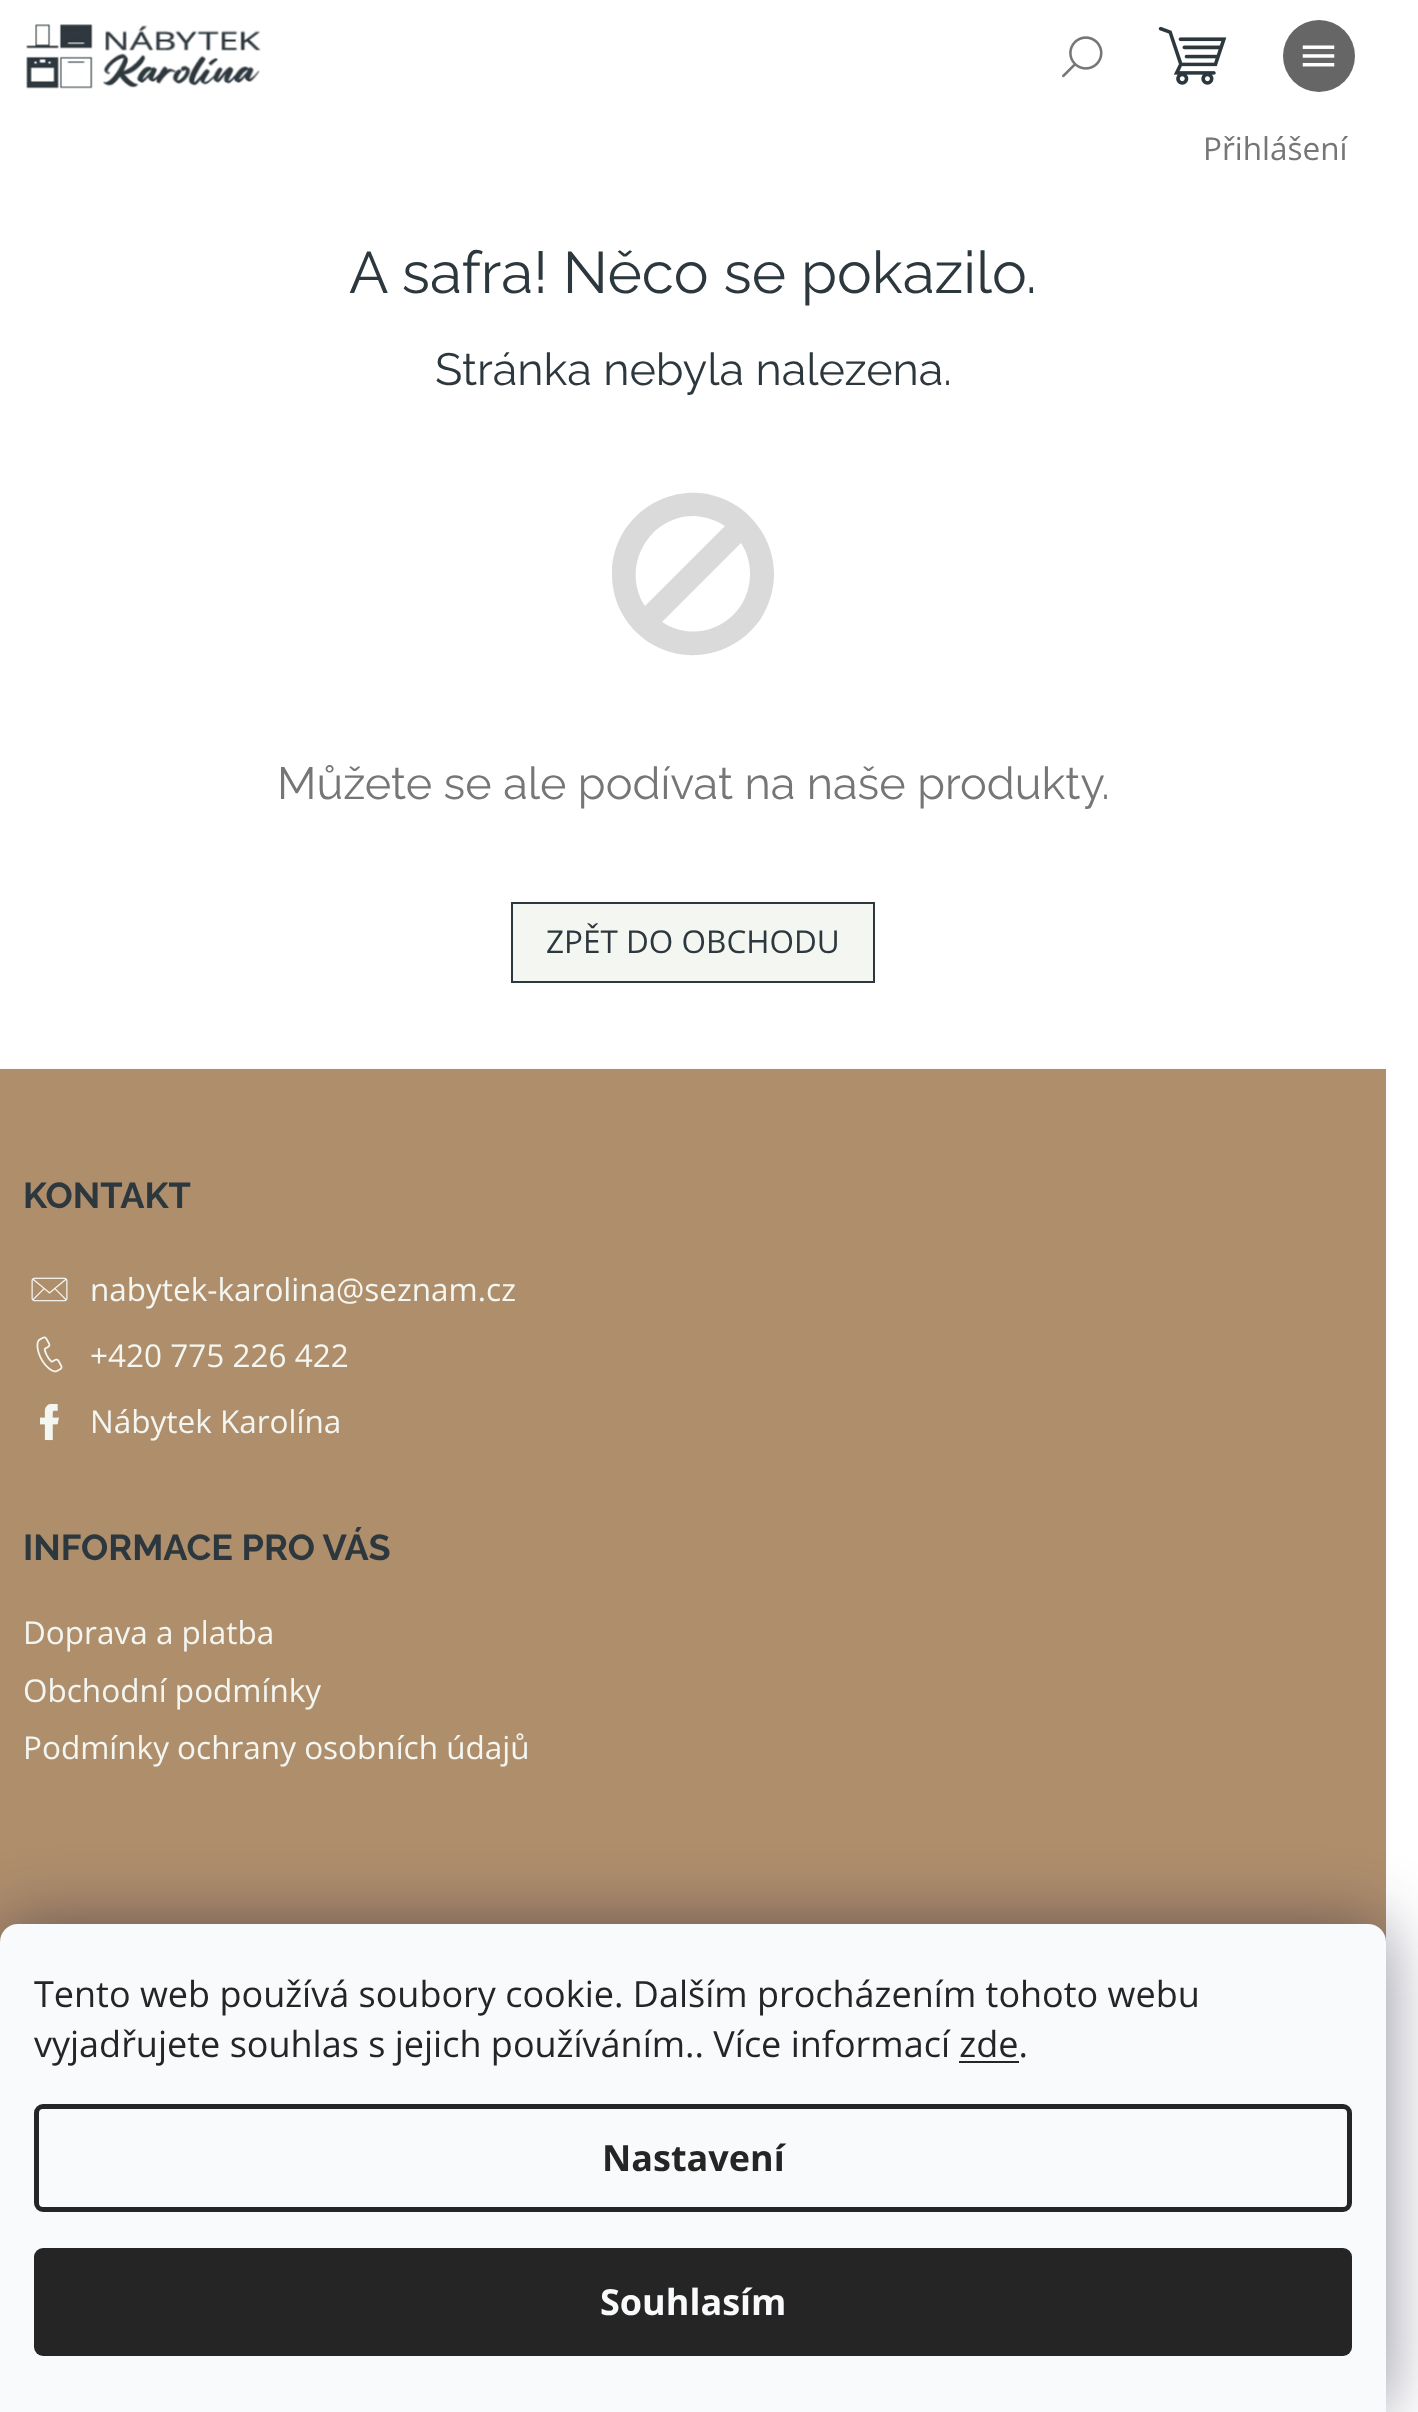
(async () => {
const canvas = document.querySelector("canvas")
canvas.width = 1418
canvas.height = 2412
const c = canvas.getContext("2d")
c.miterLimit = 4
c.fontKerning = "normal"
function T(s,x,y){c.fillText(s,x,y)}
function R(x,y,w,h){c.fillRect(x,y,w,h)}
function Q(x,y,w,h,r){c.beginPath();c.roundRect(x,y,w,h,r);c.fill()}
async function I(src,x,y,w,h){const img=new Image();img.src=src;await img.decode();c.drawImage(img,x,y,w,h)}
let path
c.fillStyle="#fff"
R(0,0,1418,2412)
await I("1.png",1062,36,41,42)
c.fillStyle="#666"
c.beginPath()
c.arc(1319,56,36,0,7)
c.fill()
await I("2.png",1302,45,33,22)
await I("3.png",26,24,235,65)
await I("4.png",1158,26,69,59)
c.font="31.5px Open Sans"
c.fillStyle="#767676"
T("Přihlášení",1203,160)
c.font="58.5px Raleway"
c.fillStyle="#2d383e"
T("A safra! Něco se pokazilo.",349,293)
c.font="45px Raleway"
T("Stránka nebyla nalezena.",435,385)
c.fillStyle="#dadada"
path = new Path2D("M750 574c0-11-3-22-9-31l-79 79c38 25 88-2 88-48zm-105 32l80-80c-9-6-19-9-30-10c-46-1-75 51-50 90zm129-32c0 16-5 32-14 46c-8 11-19 21-32 27c-54 26-116-13-116-73c0-60 63-99 116-73c13 6 24 16 32 28c9 13 14 29 14 45z")
c.fill(path)
c.fillStyle="#767676"
T("Můžete se ale podívat na naše produkty.",277,799)
c.fillStyle="#f3f6f1"
c.beginPath()
c.rect(512,903,362,79)
c.fill()
c.strokeStyle="#2d383e"
c.lineWidth=2
c.stroke()
c.font="31.5px Open Sans"
c.fillStyle="#2d383e"
T("ZPĚT DO OBCHODU",546,953)
c.fillStyle="#af8e6c"
R(0,1069,1386,873)
c.font="bold 36px Raleway"
c.fillStyle="#2d383e"
T("KONTAKT",23,1208)
await I("5.png",31,1277,37,25)
c.font="31.5px Open Sans"
c.fillStyle="#f3f6f1"
T("nabytek-karolina@seznam.cz",90,1301)
await I("6.png",36,1336,27,37)
T("+420 775 226 422",90,1367)
await I("7.png",40,1404,19,37)
T("Nábytek Karolína",90,1433)
c.font="bold 36px Raleway"
c.fillStyle="#2d383e"
T("INFORMACE PRO VÁS",23,1560)
c.font="31.5px Open Sans"
c.fillStyle="#f3f6f1"
T("Doprava a platba",23,1644)
T("Obchodní podmínky",23,1702)
T("Podmínky ochrany osobních údajů",23,1759)
c.fillStyle="#1b193980"
c.filter="blur(34px)"
c.beginPath()
c.roundRect(0,1924,1386,488,18)
c.fill()
c.filter="none"
c.fillStyle="#f8fafb"
c.beginPath()
c.roundRect(0,1924,1386,488,[18,18,0,0])
c.fill()
c.font="36px Open Sans"
c.fillStyle="#252525"
T("Tento web používá soubory cookie. Dalším procházením tohoto webu",34,2007)
T("vyjadřujete souhlas s jejich používáním.. Více informací zde.",34,2057)
R(959,2061,60,2)
c.beginPath()
c.roundRect(36.5,2106.5,1313,103,6.5)
c.strokeStyle="#252525"
c.lineWidth=5
c.stroke()
c.font="bold 36px Open Sans"
T("Nastavení",602,2171)
Q(34,2248,1318,108,9)
c.fillStyle="#f8fafb"
T("Souhlasím",600,2315)
})()
